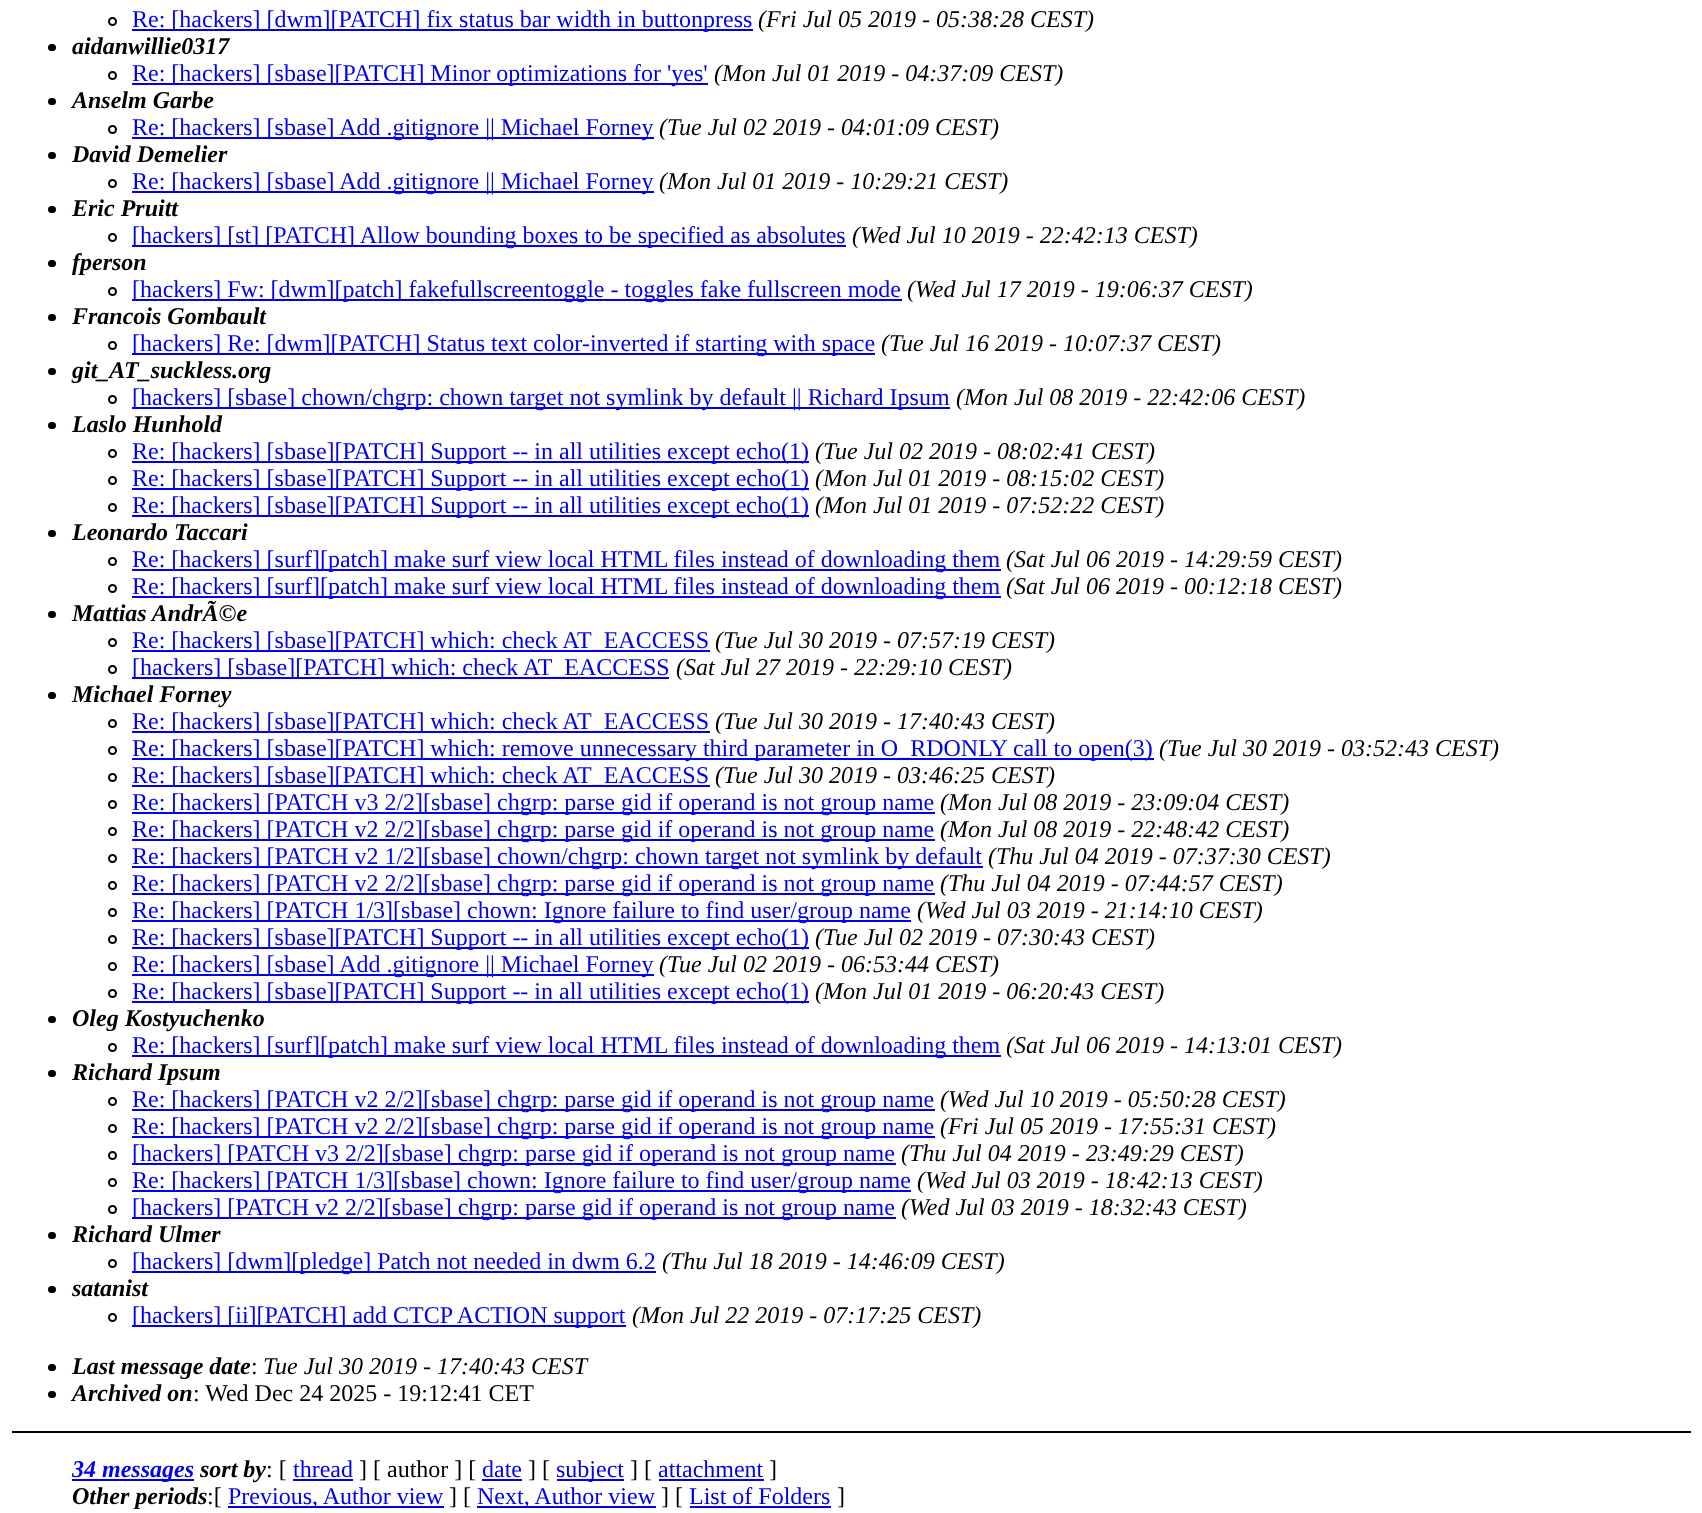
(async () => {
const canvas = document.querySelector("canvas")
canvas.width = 1702
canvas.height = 1513
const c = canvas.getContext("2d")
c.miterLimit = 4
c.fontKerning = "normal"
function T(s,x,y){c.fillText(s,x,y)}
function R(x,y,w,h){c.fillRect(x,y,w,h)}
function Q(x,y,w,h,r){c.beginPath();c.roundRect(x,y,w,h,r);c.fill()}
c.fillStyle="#fff"
R(0,0,1702,1513)
c.beginPath()
c.arc(112.5,21.5,3.5,0,7)
c.strokeStyle="#000"
c.lineWidth=2
c.stroke()
c.fillStyle="#00e"
R(132,29,621,2)
c.font="24px Liberation Serif"
T("Re: [hackers] [dwm][PATCH] fix status bar width in buttonpress",132,27)
c.font="italic 24px Liberation Serif"
c.fillStyle="#000"
T("(Fri Jul 05 2019 - 05:38:28 CEST)",758,27)
Q(48,44,8,7,3.5)
c.font="italic bold 24px Liberation Serif"
T("aidanwillie0317",72,54)
c.beginPath()
c.arc(112.5,75.5,3.5,0,7)
c.stroke()
c.fillStyle="#00e"
R(132,83,576,2)
c.font="24px Liberation Serif"
T("Re: [hackers] [sbase][PATCH] Minor optimizations for 'yes'",132,81)
c.font="italic 24px Liberation Serif"
c.fillStyle="#000"
T("(Mon Jul 01 2019 - 04:37:09 CEST)",714,81)
Q(48,98,8,7,3.5)
c.font="italic bold 24px Liberation Serif"
T("Anselm Garbe",72,108)
c.beginPath()
c.arc(112.5,129.5,3.5,0,7)
c.stroke()
c.fillStyle="#00e"
R(132,137,522,2)
c.font="24px Liberation Serif"
T("Re: [hackers] [sbase] Add .gitignore || Michael Forney",132,135)
c.font="italic 24px Liberation Serif"
c.fillStyle="#000"
T("(Tue Jul 02 2019 - 04:01:09 CEST)",659,135)
Q(48,152,8,7,3.5)
c.font="italic bold 24px Liberation Serif"
T("David Demelier",72,162)
c.beginPath()
c.arc(112.5,183.5,3.5,0,7)
c.stroke()
c.fillStyle="#00e"
R(132,191,522,2)
c.font="24px Liberation Serif"
T("Re: [hackers] [sbase] Add .gitignore || Michael Forney",132,189)
c.font="italic 24px Liberation Serif"
c.fillStyle="#000"
T("(Mon Jul 01 2019 - 10:29:21 CEST)",659,189)
Q(48,206,8,7,3.5)
c.font="italic bold 24px Liberation Serif"
T("Eric Pruitt",72,216)
c.beginPath()
c.arc(112.5,237.5,3.5,0,7)
c.stroke()
c.fillStyle="#00e"
R(132,245,714,2)
c.font="24px Liberation Serif"
T("[hackers] [st] [PATCH] Allow bounding boxes to be specified as absolutes",132,243)
c.font="italic 24px Liberation Serif"
c.fillStyle="#000"
T("(Wed Jul 10 2019 - 22:42:13 CEST)",852,243)
Q(48,260,8,7,3.5)
c.font="italic bold 24px Liberation Serif"
T("fperson",72,270)
c.beginPath()
c.arc(112.5,291.5,3.5,0,7)
c.stroke()
c.fillStyle="#00e"
R(132,299,770,2)
c.font="24px Liberation Serif"
T("[hackers] Fw: [dwm][patch] fakefullscreentoggle - toggles fake fullscreen mode",132,297)
c.font="italic 24px Liberation Serif"
c.fillStyle="#000"
T("(Wed Jul 17 2019 - 19:06:37 CEST)",907,297)
Q(48,314,8,7,3.5)
c.font="italic bold 24px Liberation Serif"
T("Francois Gombault",72,324)
c.beginPath()
c.arc(112.5,345.5,3.5,0,7)
c.stroke()
c.fillStyle="#00e"
R(132,353,743,2)
c.font="24px Liberation Serif"
T("[hackers] Re: [dwm][PATCH] Status text color-inverted if starting with space",132,351)
c.font="italic 24px Liberation Serif"
c.fillStyle="#000"
T("(Tue Jul 16 2019 - 10:07:37 CEST)",881,351)
Q(48,368,8,7,3.5)
c.font="italic bold 24px Liberation Serif"
T("git_AT_suckless.org",72,378)
c.beginPath()
c.arc(112.5,399.5,3.5,0,7)
c.stroke()
c.fillStyle="#00e"
R(132,407,818,2)
c.font="24px Liberation Serif"
T("[hackers] [sbase] chown/chgrp: chown target not symlink by default || Richard Ipsum",132,405)
c.font="italic 24px Liberation Serif"
c.fillStyle="#000"
T("(Mon Jul 08 2019 - 22:42:06 CEST)",956,405)
Q(48,422,8,7,3.5)
c.font="italic bold 24px Liberation Serif"
T("Laslo Hunhold",72,432)
c.beginPath()
c.arc(112.5,453.5,3.5,0,7)
c.stroke()
c.fillStyle="#00e"
R(132,461,677,2)
c.font="24px Liberation Serif"
T("Re: [hackers] [sbase][PATCH] Support -- in all utilities except echo(1)",132,459)
c.font="italic 24px Liberation Serif"
c.fillStyle="#000"
T("(Tue Jul 02 2019 - 08:02:41 CEST)",815,459)
c.beginPath()
c.arc(112.5,480.5,3.5,0,7)
c.stroke()
c.fillStyle="#00e"
R(132,488,677,2)
c.font="24px Liberation Serif"
T("Re: [hackers] [sbase][PATCH] Support -- in all utilities except echo(1)",132,486)
c.font="italic 24px Liberation Serif"
c.fillStyle="#000"
T("(Mon Jul 01 2019 - 08:15:02 CEST)",815,486)
c.beginPath()
c.arc(112.5,507.5,3.5,0,7)
c.stroke()
c.fillStyle="#00e"
R(132,515,677,2)
c.font="24px Liberation Serif"
T("Re: [hackers] [sbase][PATCH] Support -- in all utilities except echo(1)",132,513)
c.font="italic 24px Liberation Serif"
c.fillStyle="#000"
T("(Mon Jul 01 2019 - 07:52:22 CEST)",815,513)
Q(48,530,8,7,3.5)
c.font="italic bold 24px Liberation Serif"
T("Leonardo Taccari",72,540)
c.beginPath()
c.arc(112.5,561.5,3.5,0,7)
c.stroke()
c.fillStyle="#00e"
R(132,569,869,2)
c.font="24px Liberation Serif"
T("Re: [hackers] [surf][patch] make surf view local HTML files instead of downloading them",132,567)
c.font="italic 24px Liberation Serif"
c.fillStyle="#000"
T("(Sat Jul 06 2019 - 14:29:59 CEST)",1006,567)
c.beginPath()
c.arc(112.5,588.5,3.5,0,7)
c.stroke()
c.fillStyle="#00e"
R(132,596,869,2)
c.font="24px Liberation Serif"
T("Re: [hackers] [surf][patch] make surf view local HTML files instead of downloading them",132,594)
c.font="italic 24px Liberation Serif"
c.fillStyle="#000"
T("(Sat Jul 06 2019 - 00:12:18 CEST)",1006,594)
Q(48,611,8,7,3.5)
c.font="italic bold 24px Liberation Serif"
T("Mattias AndrÃ©e",72,621)
c.beginPath()
c.arc(112.5,642.5,3.5,0,7)
c.stroke()
c.fillStyle="#00e"
R(132,650,578,2)
c.font="24px Liberation Serif"
T("Re: [hackers] [sbase][PATCH] which: check AT_EACCESS",132,648)
c.font="italic 24px Liberation Serif"
c.fillStyle="#000"
T("(Tue Jul 30 2019 - 07:57:19 CEST)",715,648)
c.beginPath()
c.arc(112.5,669.5,3.5,0,7)
c.stroke()
c.fillStyle="#00e"
R(132,677,537,2)
c.font="24px Liberation Serif"
T("[hackers] [sbase][PATCH] which: check AT_EACCESS",132,675)
c.font="italic 24px Liberation Serif"
c.fillStyle="#000"
T("(Sat Jul 27 2019 - 22:29:10 CEST)",676,675)
Q(48,692,8,7,3.5)
c.font="italic bold 24px Liberation Serif"
T("Michael Forney",72,702)
c.beginPath()
c.arc(112.5,723.5,3.5,0,7)
c.stroke()
c.fillStyle="#00e"
R(132,731,578,2)
c.font="24px Liberation Serif"
T("Re: [hackers] [sbase][PATCH] which: check AT_EACCESS",132,729)
c.font="italic 24px Liberation Serif"
c.fillStyle="#000"
T("(Tue Jul 30 2019 - 17:40:43 CEST)",715,729)
c.beginPath()
c.arc(112.5,750.5,3.5,0,7)
c.stroke()
c.fillStyle="#00e"
R(132,758,1022,2)
c.font="24px Liberation Serif"
T("Re: [hackers] [sbase][PATCH] which: remove unnecessary third parameter in O_RDONLY call to open(3)",132,756)
c.font="italic 24px Liberation Serif"
c.fillStyle="#000"
T("(Tue Jul 30 2019 - 03:52:43 CEST)",1159,756)
c.beginPath()
c.arc(112.5,777.5,3.5,0,7)
c.stroke()
c.fillStyle="#00e"
R(132,785,578,2)
c.font="24px Liberation Serif"
T("Re: [hackers] [sbase][PATCH] which: check AT_EACCESS",132,783)
c.font="italic 24px Liberation Serif"
c.fillStyle="#000"
T("(Tue Jul 30 2019 - 03:46:25 CEST)",715,783)
c.beginPath()
c.arc(112.5,804.5,3.5,0,7)
c.stroke()
c.fillStyle="#00e"
R(132,812,803,2)
c.font="24px Liberation Serif"
T("Re: [hackers] [PATCH v3 2/2][sbase] chgrp: parse gid if operand is not group name",132,810)
c.font="italic 24px Liberation Serif"
c.fillStyle="#000"
T("(Mon Jul 08 2019 - 23:09:04 CEST)",940,810)
c.beginPath()
c.arc(112.5,831.5,3.5,0,7)
c.stroke()
c.fillStyle="#00e"
R(132,839,803,2)
c.font="24px Liberation Serif"
T("Re: [hackers] [PATCH v2 2/2][sbase] chgrp: parse gid if operand is not group name",132,837)
c.font="italic 24px Liberation Serif"
c.fillStyle="#000"
T("(Mon Jul 08 2019 - 22:48:42 CEST)",940,837)
c.beginPath()
c.arc(112.5,858.5,3.5,0,7)
c.stroke()
c.fillStyle="#00e"
R(132,866,851,2)
c.font="24px Liberation Serif"
T("Re: [hackers] [PATCH v2 1/2][sbase] chown/chgrp: chown target not symlink by default",132,864)
c.font="italic 24px Liberation Serif"
c.fillStyle="#000"
T("(Thu Jul 04 2019 - 07:37:30 CEST)",988,864)
c.beginPath()
c.arc(112.5,885.5,3.5,0,7)
c.stroke()
c.fillStyle="#00e"
R(132,893,803,2)
c.font="24px Liberation Serif"
T("Re: [hackers] [PATCH v2 2/2][sbase] chgrp: parse gid if operand is not group name",132,891)
c.font="italic 24px Liberation Serif"
c.fillStyle="#000"
T("(Thu Jul 04 2019 - 07:44:57 CEST)",940,891)
c.beginPath()
c.arc(112.5,912.5,3.5,0,7)
c.stroke()
c.fillStyle="#00e"
R(132,920,779,2)
c.font="24px Liberation Serif"
T("Re: [hackers] [PATCH 1/3][sbase] chown: Ignore failure to find user/group name",132,918)
c.font="italic 24px Liberation Serif"
c.fillStyle="#000"
T("(Wed Jul 03 2019 - 21:14:10 CEST)",917,918)
c.beginPath()
c.arc(112.5,939.5,3.5,0,7)
c.stroke()
c.fillStyle="#00e"
R(132,947,677,2)
c.font="24px Liberation Serif"
T("Re: [hackers] [sbase][PATCH] Support -- in all utilities except echo(1)",132,945)
c.font="italic 24px Liberation Serif"
c.fillStyle="#000"
T("(Tue Jul 02 2019 - 07:30:43 CEST)",815,945)
c.beginPath()
c.arc(112.5,966.5,3.5,0,7)
c.stroke()
c.fillStyle="#00e"
R(132,974,522,2)
c.font="24px Liberation Serif"
T("Re: [hackers] [sbase] Add .gitignore || Michael Forney",132,972)
c.font="italic 24px Liberation Serif"
c.fillStyle="#000"
T("(Tue Jul 02 2019 - 06:53:44 CEST)",659,972)
c.beginPath()
c.arc(112.5,993.5,3.5,0,7)
c.stroke()
c.fillStyle="#00e"
R(132,1001,677,2)
c.font="24px Liberation Serif"
T("Re: [hackers] [sbase][PATCH] Support -- in all utilities except echo(1)",132,999)
c.font="italic 24px Liberation Serif"
c.fillStyle="#000"
T("(Mon Jul 01 2019 - 06:20:43 CEST)",815,999)
Q(48,1016,8,7,3.5)
c.font="italic bold 24px Liberation Serif"
T("Oleg Kostyuchenko",72,1026)
c.beginPath()
c.arc(112.5,1047.5,3.5,0,7)
c.stroke()
c.fillStyle="#00e"
R(132,1055,869,2)
c.font="24px Liberation Serif"
T("Re: [hackers] [surf][patch] make surf view local HTML files instead of downloading them",132,1053)
c.font="italic 24px Liberation Serif"
c.fillStyle="#000"
T("(Sat Jul 06 2019 - 14:13:01 CEST)",1006,1053)
Q(48,1070,8,7,3.5)
c.font="italic bold 24px Liberation Serif"
T("Richard Ipsum",72,1080)
c.beginPath()
c.arc(112.5,1101.5,3.5,0,7)
c.stroke()
c.fillStyle="#00e"
R(132,1109,803,2)
c.font="24px Liberation Serif"
T("Re: [hackers] [PATCH v2 2/2][sbase] chgrp: parse gid if operand is not group name",132,1107)
c.font="italic 24px Liberation Serif"
c.fillStyle="#000"
T("(Wed Jul 10 2019 - 05:50:28 CEST)",940,1107)
c.beginPath()
c.arc(112.5,1128.5,3.5,0,7)
c.stroke()
c.fillStyle="#00e"
R(132,1136,803,2)
c.font="24px Liberation Serif"
T("Re: [hackers] [PATCH v2 2/2][sbase] chgrp: parse gid if operand is not group name",132,1134)
c.font="italic 24px Liberation Serif"
c.fillStyle="#000"
T("(Fri Jul 05 2019 - 17:55:31 CEST)",940,1134)
c.beginPath()
c.arc(112.5,1155.5,3.5,0,7)
c.stroke()
c.fillStyle="#00e"
R(132,1163,764,2)
c.font="24px Liberation Serif"
T("[hackers] [PATCH v3 2/2][sbase] chgrp: parse gid if operand is not group name",132,1161)
c.font="italic 24px Liberation Serif"
c.fillStyle="#000"
T("(Thu Jul 04 2019 - 23:49:29 CEST)",901,1161)
c.beginPath()
c.arc(112.5,1182.5,3.5,0,7)
c.stroke()
c.fillStyle="#00e"
R(132,1190,779,2)
c.font="24px Liberation Serif"
T("Re: [hackers] [PATCH 1/3][sbase] chown: Ignore failure to find user/group name",132,1188)
c.font="italic 24px Liberation Serif"
c.fillStyle="#000"
T("(Wed Jul 03 2019 - 18:42:13 CEST)",917,1188)
c.beginPath()
c.arc(112.5,1209.5,3.5,0,7)
c.stroke()
c.fillStyle="#00e"
R(132,1217,764,2)
c.font="24px Liberation Serif"
T("[hackers] [PATCH v2 2/2][sbase] chgrp: parse gid if operand is not group name",132,1215)
c.font="italic 24px Liberation Serif"
c.fillStyle="#000"
T("(Wed Jul 03 2019 - 18:32:43 CEST)",901,1215)
Q(48,1232,8,7,3.5)
c.font="italic bold 24px Liberation Serif"
T("Richard Ulmer",72,1242)
c.beginPath()
c.arc(112.5,1263.5,3.5,0,7)
c.stroke()
c.fillStyle="#00e"
R(132,1271,524,2)
c.font="24px Liberation Serif"
T("[hackers] [dwm][pledge] Patch not needed in dwm 6.2",132,1269)
c.font="italic 24px Liberation Serif"
c.fillStyle="#000"
T("(Thu Jul 18 2019 - 14:46:09 CEST)",662,1269)
Q(48,1286,8,7,3.5)
c.font="italic bold 24px Liberation Serif"
T("satanist",72,1296)
c.beginPath()
c.arc(112.5,1317.5,3.5,0,7)
c.stroke()
c.fillStyle="#00e"
R(132,1325,494,2)
c.font="24px Liberation Serif"
T("[hackers] [ii][PATCH] add CTCP ACTION support",132,1323)
c.font="italic 24px Liberation Serif"
c.fillStyle="#000"
T("(Mon Jul 22 2019 - 07:17:25 CEST)",632,1323)
Q(48,1364,8,7,3.5)
c.font="italic bold 24px Liberation Serif"
T("Last message date",72,1374)
c.font="24px Liberation Serif"
T(":",251,1374)
c.font="italic 24px Liberation Serif"
T("Tue Jul 30 2019 - 17:40:43 CEST",263,1374)
Q(48,1391,8,7,3.5)
c.font="italic bold 24px Liberation Serif"
T("Archived on",72,1401)
c.font="24px Liberation Serif"
T(": Wed Dec 24 2025 - 19:12:41 CET",193,1401)
R(12,1431,1679,2)
c.fillStyle="#00e"
R(72,1479,122,2)
c.font="italic bold 24px Liberation Serif"
T("34 messages",72,1477)
c.fillStyle="#000"
T("sort by",200,1477)
c.font="24px Liberation Serif"
T(": [",266,1477)
c.fillStyle="#00e"
T("thread",293,1477)
R(293,1479,60,2)
c.fillStyle="#000"
T("] [ author ] [",359,1477)
c.fillStyle="#00e"
T("date",482,1477)
R(482,1479,40,2)
c.fillStyle="#000"
T("] [",528,1477)
c.fillStyle="#00e"
R(557,1479,67,2)
T("subject",556,1477)
c.fillStyle="#000"
T("] [",630,1477)
c.fillStyle="#00e"
T("attachment",658,1477)
R(659,1479,105,2)
c.fillStyle="#000"
T("]",769,1477)
c.font="italic bold 24px Liberation Serif"
T("Other periods",72,1504)
c.font="24px Liberation Serif"
T(":[",207,1504)
c.fillStyle="#00e"
R(228,1506,216,2)
T("Previous, Author view",228,1504)
c.fillStyle="#000"
T("] [",449,1504)
c.fillStyle="#00e"
R(477,1506,179,2)
T("Next, Author view",477,1504)
c.fillStyle="#000"
T("] [",661,1504)
c.fillStyle="#00e"
T("List of Folders",689,1504)
R(690,1506,141,2)
c.fillStyle="#000"
T("]",837,1504)
})()
